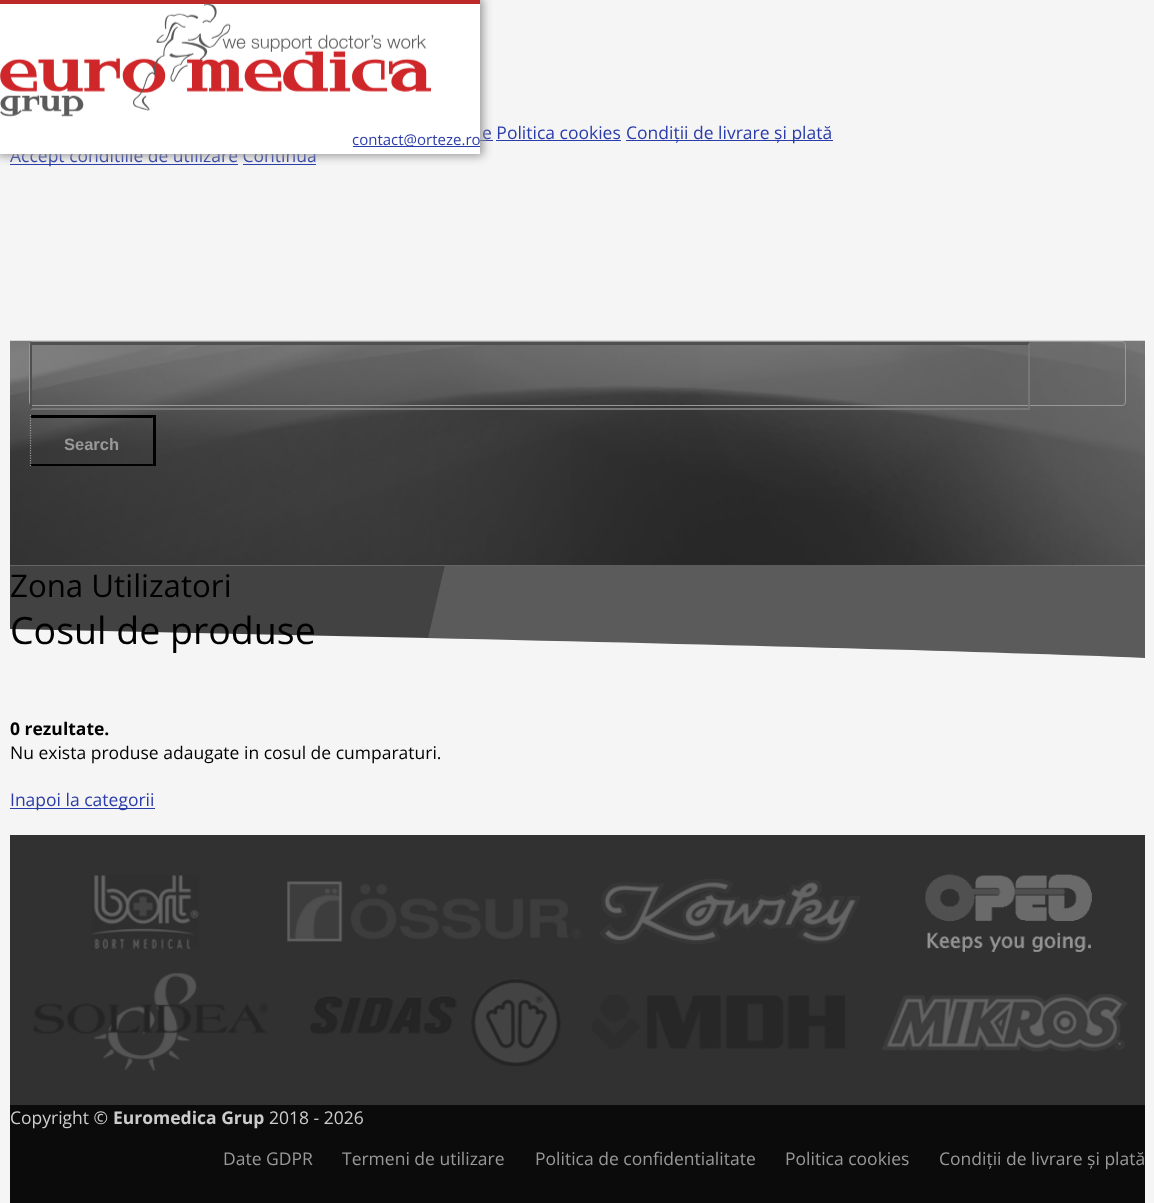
(async () => {
const canvas = document.querySelector("canvas")
canvas.width = 1154
canvas.height = 1203
const c = canvas.getContext("2d")
c.miterLimit = 4
c.fontKerning = "normal"
function T(s,x,y){c.fillText(s,x,y)}
function R(x,y,w,h){c.fillRect(x,y,w,h)}
async function I(src,x,y,w,h){const img=new Image();img.src=src;await img.decode();c.drawImage(img,x,y,w,h)}
let path
c.fillStyle="#f5f5f5"
R(0,0,1154,1203)
c.font="17.5px Open Sans"
c.fillStyle="#2a3ca9"
T("e Politica cookies",482,139)
R(480,140,13,1)
R(626,140,207,1)
T("Condiții de livrare și plată",626,139)
R(496,140,125,1)
R(10,164,228,1)
T("Accept conditiile de utilizare Continua",10,162)
R(243,164,73,1)
c.fillStyle="#999"
c.filter="blur(5px)"
c.beginPath()
c.rect(-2,-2,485,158)
c.fill()
c.filter="none"
c.fillStyle="#fff"
R(0,4,480,150)
c.fillStyle="#bd2926"
R(0,0,480,4)
await I("1.png",0,3,431,114)
c.fillStyle="#2a3ca9"
R(353,146,127,1)
c.font="15px Open Sans"
T("contact@orteze.ro",352,145)
await I("2.png",10,340,1135,226)
c.beginPath()
c.roundRect(29.5,341.5,1096,64,3.5)
c.strokeStyle="#999"
c.stroke()
c.fillStyle="#4f4f4f"
path = new Path2D("M30 342h1000l-2 3h-996z")
c.fill(path)
c.fillStyle="#767676"
path = new Path2D("M1030 342v68l-2-2v-63z")
c.fill(path)
path = new Path2D("M1030 410h-1000l2-2h996z")
c.fill(path)
c.fillStyle="#4f4f4f"
path = new Path2D("M30 410v-68l2 3v63z")
c.fill(path)
c.fillStyle="#000"
path = new Path2D("M30 415h125l-3 3h-121z")
c.fill(path)
R(153,415,3,51)
path = new Path2D("M155 466h-125l1-2h121z")
c.fill(path)
path = new Path2D("M30.5 415v51")
c.lineWidth=1.2
c.setLineDash([1.25,1.25])
c.stroke(path)
c.font="bold 16.5px Liberation Sans"
c.fillStyle="#999"
T("Search",64,450)
c.save()
c.beginPath()
c.rect(10,566,1135,94)
c.clip()
c.fillStyle="#5b5b5b"
path = new Path2D("M444 560h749v100c-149-7-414-14-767-22z")
c.fill(path,"evenodd")
c.fillStyle="#434242"
path = new Path2D("M446 560l-18 78l-422-9v-69z")
c.fill(path,"evenodd")
c.restore()
c.font="31.25px Open Sans"
c.fillStyle="#000"
T("Zona Utilizatori",10,597)
c.font="37.5px Open Sans"
T("Cosul de produse",10,644)
c.font="bold 17.5px Open Sans"
T("0 rezultate.",10,735)
c.font="17.5px Open Sans"
T("Nu exista produse adaugate in cosul de cumparaturi.",10,759)
c.fillStyle="#2a3ca9"
R(10,808,145,1)
T("Inapoi la categorii",10,806)
c.fillStyle="#313131"
R(10,835,1135,270)
await I("3.png",92,875,107,74)
await I("4.png",287,881,294,61)
await I("5.png",600,879,260,65)
await I("6.png",925,874,167,78)
await I("7.png",33,973,235,98)
await I("8.png",310,978,251,88)
await I("9.png",592,995,253,54)
await I("10.png",882,994,246,58)
c.fillStyle="#0b0b0b"
R(10,1105,1135,98)
c.fillStyle="#ccc"
T("Copyright ©",10,1124)
c.font="bold 17.5px Open Sans"
T("Euromedica Grup",113,1124)
c.font="17.5px Open Sans"
T("2018 - 2026",269,1124)
c.fillStyle="#999"
T("Date GDPR",223,1165)
T("Termeni de utilizare",342,1165)
T("Politica de confidentialitate",535,1165)
T("Politica cookies",785,1165)
T("Condiții de livrare și plată",939,1165)
})()
